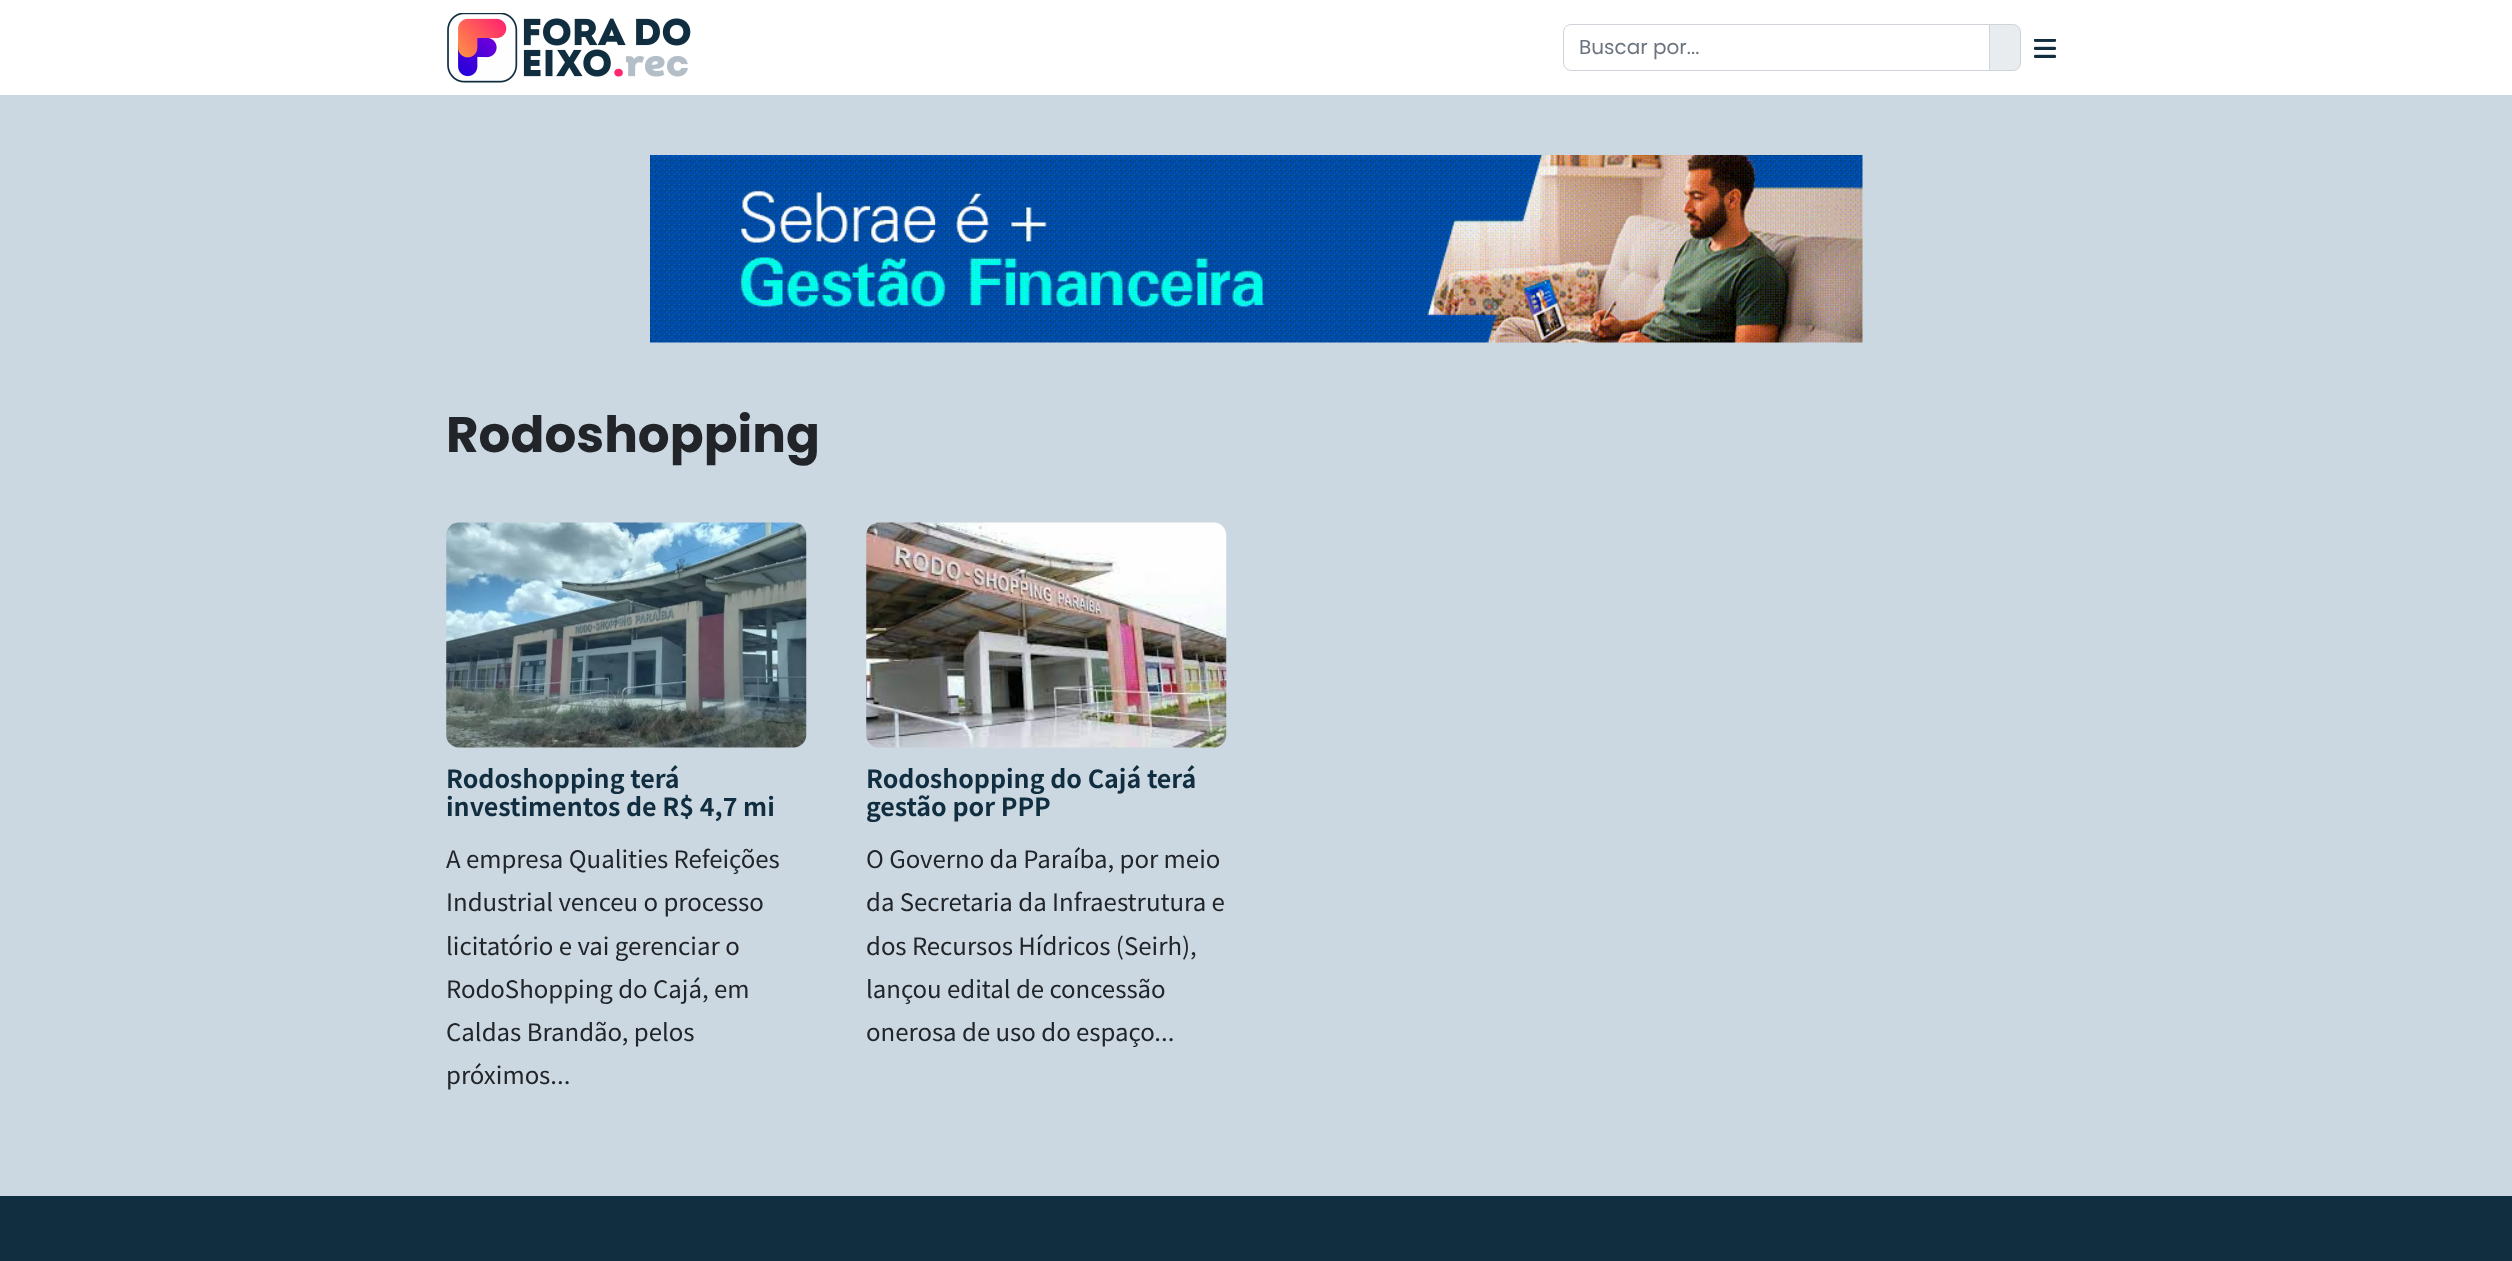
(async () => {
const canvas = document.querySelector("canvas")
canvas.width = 2512
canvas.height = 1261
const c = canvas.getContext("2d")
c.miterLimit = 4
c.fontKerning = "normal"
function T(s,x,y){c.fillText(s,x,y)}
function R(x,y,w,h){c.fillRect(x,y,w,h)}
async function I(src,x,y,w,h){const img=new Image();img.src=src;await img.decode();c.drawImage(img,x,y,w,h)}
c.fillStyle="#ccd8e1"
R(0,0,2512,1261)
c.fillStyle="#fff"
R(0,0,2512,95)
await I("1.png",447,13,244,70)
c.fillStyle="#e9ecef"
c.beginPath()
c.roundRect(1989.5,24.5,31,46,[0,7.5,7.5,0])
c.fill()
c.strokeStyle="#ced4da"
c.stroke()
c.beginPath()
c.roundRect(1563.5,24.5,426,46,[7.5,0,0,7.5])
c.stroke()
c.font="20px Poppins"
c.fillStyle="#6c757d"
T("Buscar por...",1579,54)
await I("2.png",2034,39,22,19)
await I("3.png",650,155,1213,188)
c.font="bold 50px Poppins"
c.fillStyle="#212529"
T("Rodoshopping",446,452)
await I("4.png",446,522,361,226)
c.font="bold 25px Noto Sans TC"
c.fillStyle="#112e40"
T("Rodoshopping terá",446,788)
T("investimentos de R$ 4,7 mi",446,816)
c.font="24px Noto Sans TC"
c.fillStyle="#212529"
T("A empresa Qualities Refeições",446,868)
T("Industrial venceu o processo",446,911)
T("licitatório e vai gerenciar o",446,955)
T("RodoShopping do Cajá, em",446,998)
T("Caldas Brandão, pelos",446,1041)
T("próximos...",446,1084)
await I("5.png",866,522,361,226)
c.font="bold 25px Noto Sans TC"
c.fillStyle="#112e40"
T("Rodoshopping do Cajá terá",866,788)
T("gestão por PPP",866,816)
c.font="24px Noto Sans TC"
c.fillStyle="#212529"
T("O Governo da Paraíba, por meio",866,868)
T("da Secretaria da Infraestrutura e",866,911)
T("dos Recursos Hídricos (Seirh),",866,955)
T("lançou edital de concessão",866,998)
T("onerosa de uso do espaço...",866,1041)
c.fillStyle="#112e40"
R(0,1196,2512,65)
})()
